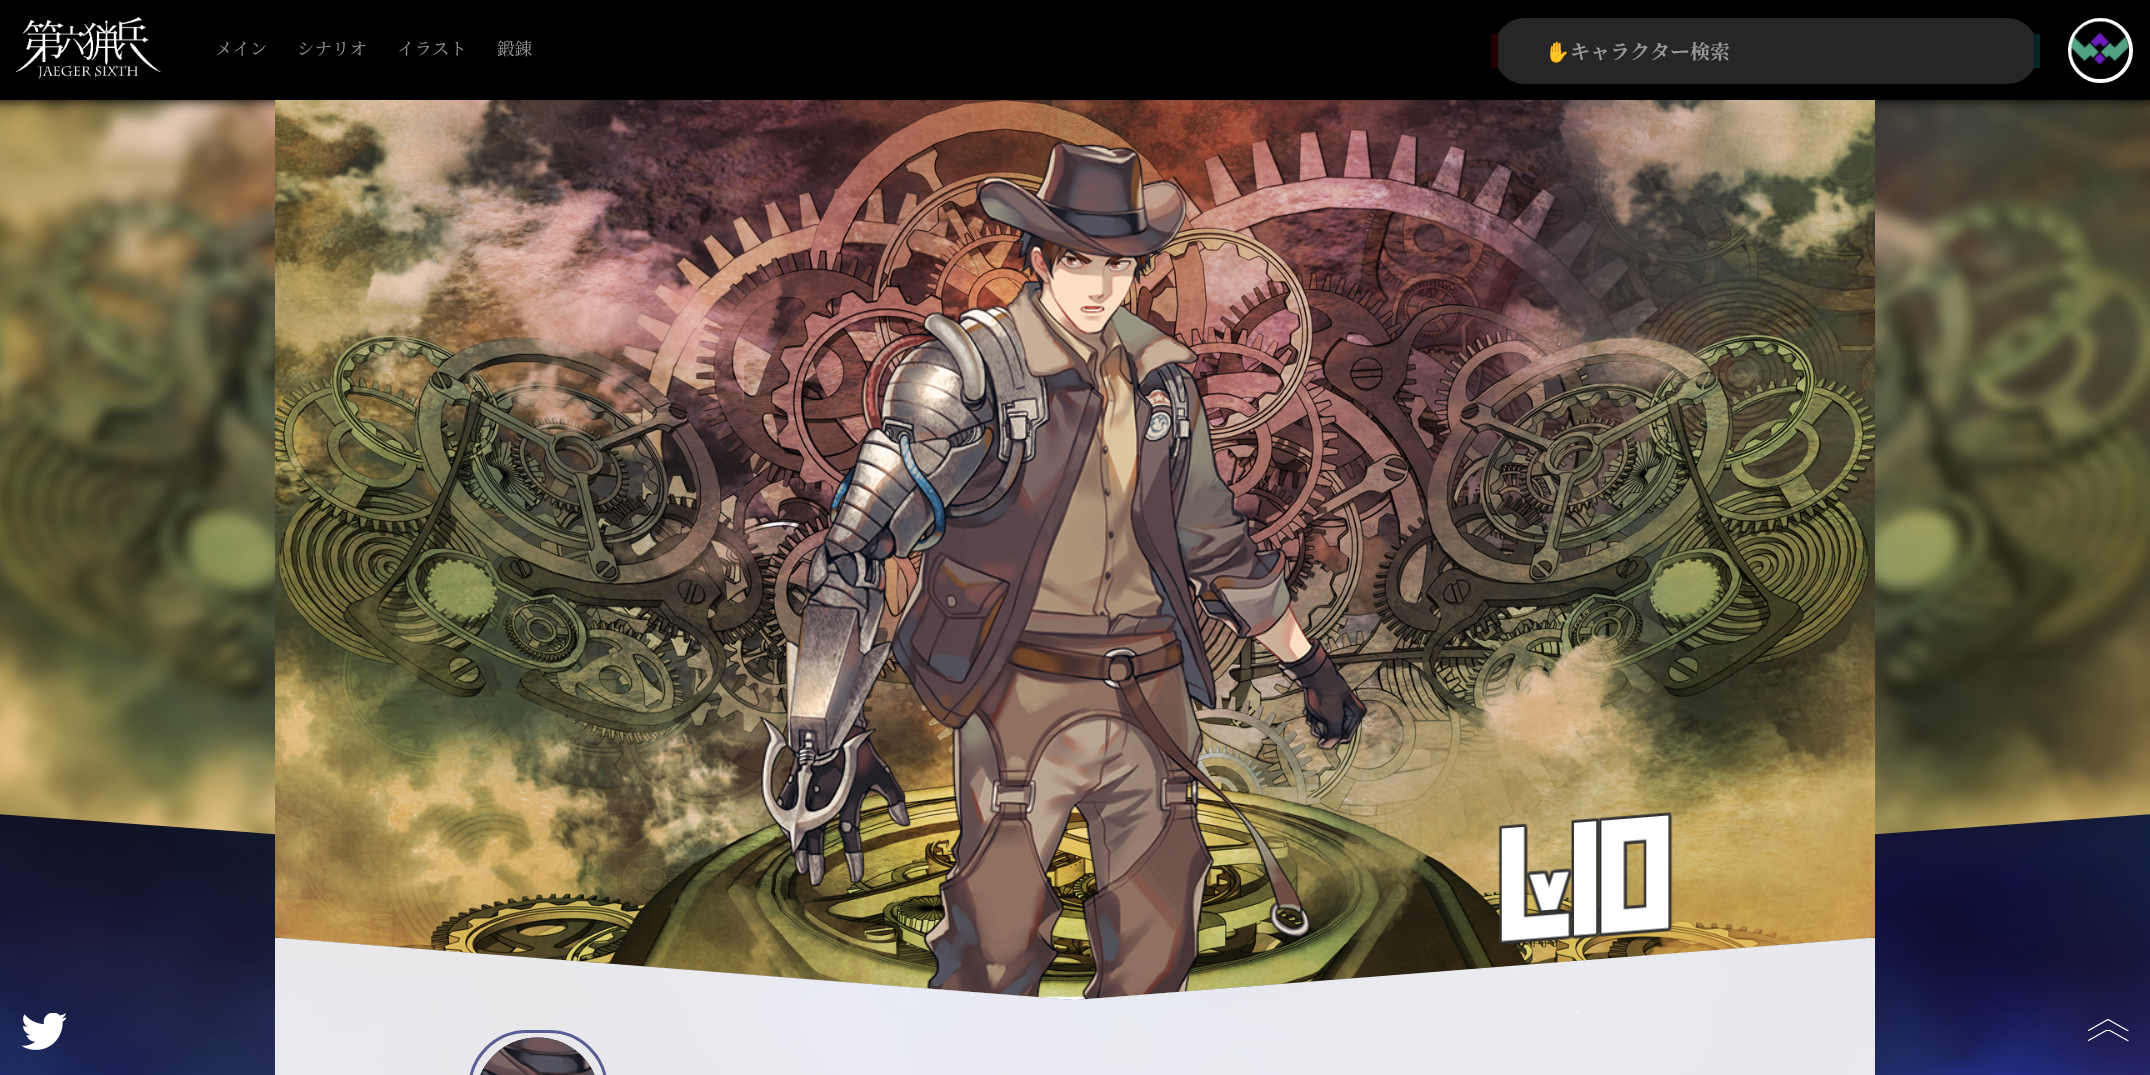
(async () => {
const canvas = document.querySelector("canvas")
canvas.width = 2150
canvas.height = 1075
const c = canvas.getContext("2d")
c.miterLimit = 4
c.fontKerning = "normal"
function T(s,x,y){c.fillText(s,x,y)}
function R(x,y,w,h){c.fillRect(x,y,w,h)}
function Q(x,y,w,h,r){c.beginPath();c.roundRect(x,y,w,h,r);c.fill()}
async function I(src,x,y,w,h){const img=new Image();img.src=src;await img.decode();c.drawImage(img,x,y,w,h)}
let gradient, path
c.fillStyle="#fff"
R(0,0,2150,1075)
await I("10.png",0,814,2150,261)
c.fillStyle="#99b"
Q(1510,963,8,7,3.5)
c.beginPath()
c.arc(1577.5,1012.5,2.5,0,7)
c.fill()
gradient = c.createLinearGradient(1075,0,1075,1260)
gradient.addColorStop(0,"#000")
gradient.addColorStop(.1,"#000")
gradient.addColorStop(.6,"#000000b3")
gradient.addColorStop(1,"#00000000")
c.fillStyle = gradient
R(0,0,2150,1075)
await I("1.png",15,17,146,63)
c.font="17.5px Noto Serif JP"
c.fillStyle="#999"
T("メイン",215,55)
T("シナリオ",297,55)
T("イラスト",397,55)
T("鍛錬",497,55)
c.fillStyle="#262626"
Q(1494,18,544,66,31)
c.fillStyle="#260000"
R(1491,34,7,34)
c.font="bold 20px Noto Color Emoji"
c.fillStyle="#999"
T("✋",1545,59)
c.font="bold 20px Noto Serif JP"
T("キャラクター検索",1570,59)
c.fillStyle="#002626"
R(2034,34,6,34)
c.beginPath()
c.arc(2100.5,50.5,30.5,0,7)
c.strokeStyle="#fff"
c.lineWidth=4
c.stroke()
await I("2.png",2070,20,60,60)
await I("3.png",0,100,2150,735)
await I("5.png",275,937,1600,63)
await I("4.png",275,100,1600,900)
await I("6.png",758,141,610,859)
await I("7.png",1498,823,75,122)
await I("8.png",1571,818,29,121)
await I("9.png",1598,812,75,125)
c.fillStyle="#ffffffe6"
path = new Path2D("M275 938v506l797 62h6l797-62v-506h-6l-794 62l-794-62z")
c.fill(path)
await I("11.png",480,1037,115,38)
await I("12.png",480,1037,115,38)
c.beginPath()
c.roundRect(469.5,1031.5,137,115,68.5)
c.strokeStyle="#5a5d94"
c.lineWidth=3
c.stroke()
await I("13.png",21,1013,45,37)
c.save()
c.beginPath()
c.rect(2088,1030,41,11)
c.clip()
path = new Path2D("M2087.5 1041l20.5-11.5l20.5 11.5")
c.strokeStyle="#fff"
c.lineWidth=1.2
c.stroke(path)
c.restore()
c.save()
c.beginPath()
c.rect(2088,1019,41,12)
c.clip()
path = new Path2D("M2087.5 1031l20.5-11.5l20.5 11.5")
c.strokeStyle="#fff"
c.lineWidth=1.2
c.stroke(path)
c.restore()
})()
